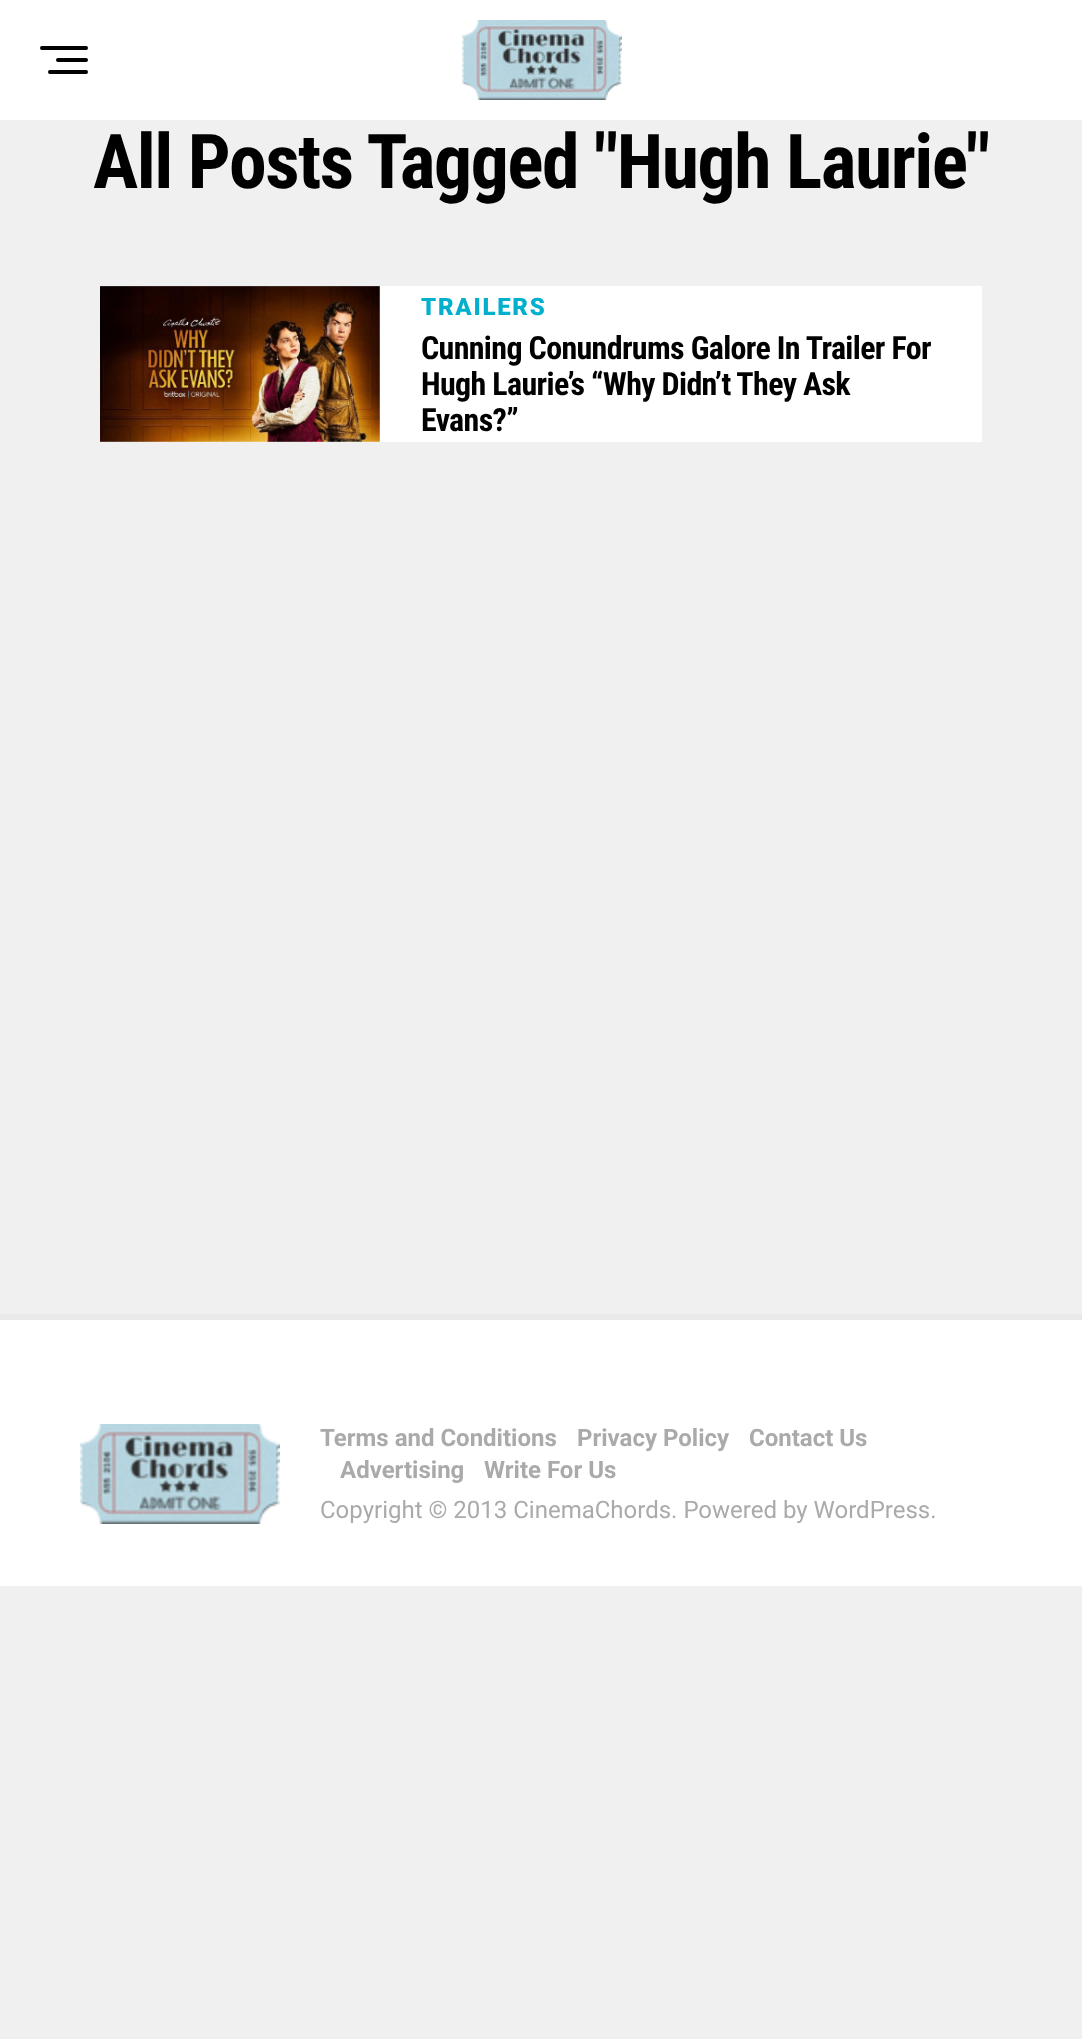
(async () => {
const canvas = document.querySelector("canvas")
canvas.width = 1082
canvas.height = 2039
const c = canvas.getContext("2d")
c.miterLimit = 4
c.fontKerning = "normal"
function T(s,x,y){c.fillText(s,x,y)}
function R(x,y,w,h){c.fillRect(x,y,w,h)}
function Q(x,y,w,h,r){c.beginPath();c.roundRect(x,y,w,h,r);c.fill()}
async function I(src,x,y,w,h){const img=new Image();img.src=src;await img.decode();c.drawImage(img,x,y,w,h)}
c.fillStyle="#f0f0f0"
R(0,0,1082,2039)
c.fillStyle="#fff"
R(0,0,1082,120)
c.fillStyle="#000"
Q(40,46,48,4,2)
Q(56,58,32,4,2)
Q(48,70,40,4,2)
await I("1.png",462,20,160,80)
c.letterSpacing="-1.5px"
c.font="bold 75.75px Roboto Condensed"
T("All Posts Tagged \"Hugh Laurie\"",93,188)
c.fillStyle="#fff"
R(100,286,882,156)
await I("2.png",100,286,280,156)
c.letterSpacing="1.75px"
c.font="900 24px Roboto"
c.fillStyle="#00b0cc"
T("TRAILERS",421,315)
c.letterSpacing="-0.65px"
c.font="bold 32px Roboto Condensed"
c.fillStyle="#000"
T("Cunning Conundrums Galore In Trailer For",421,359)
T("Hugh Laurie’s “Why Didn’t They Ask",421,395)
T("Evans?”",421,431)
c.fillStyle="#fff"
R(0,1320,1082,266)
c.fillStyle="#e9e9e9"
R(0,1314,1082,6)
await I("3.png",80,1424,200,100)
c.letterSpacing="0px"
c.font="bold 24px Roboto"
c.fillStyle="#aaa"
T("Terms and Conditions",320,1446)
T("Privacy Policy",577,1446)
T("Contact Us",749,1446)
T("Advertising",340,1478)
T("Write For Us",484,1478)
c.font="24px Roboto"
T("Copyright © 2013 CinemaChords. Powered by WordPress.",320,1518)
})()
